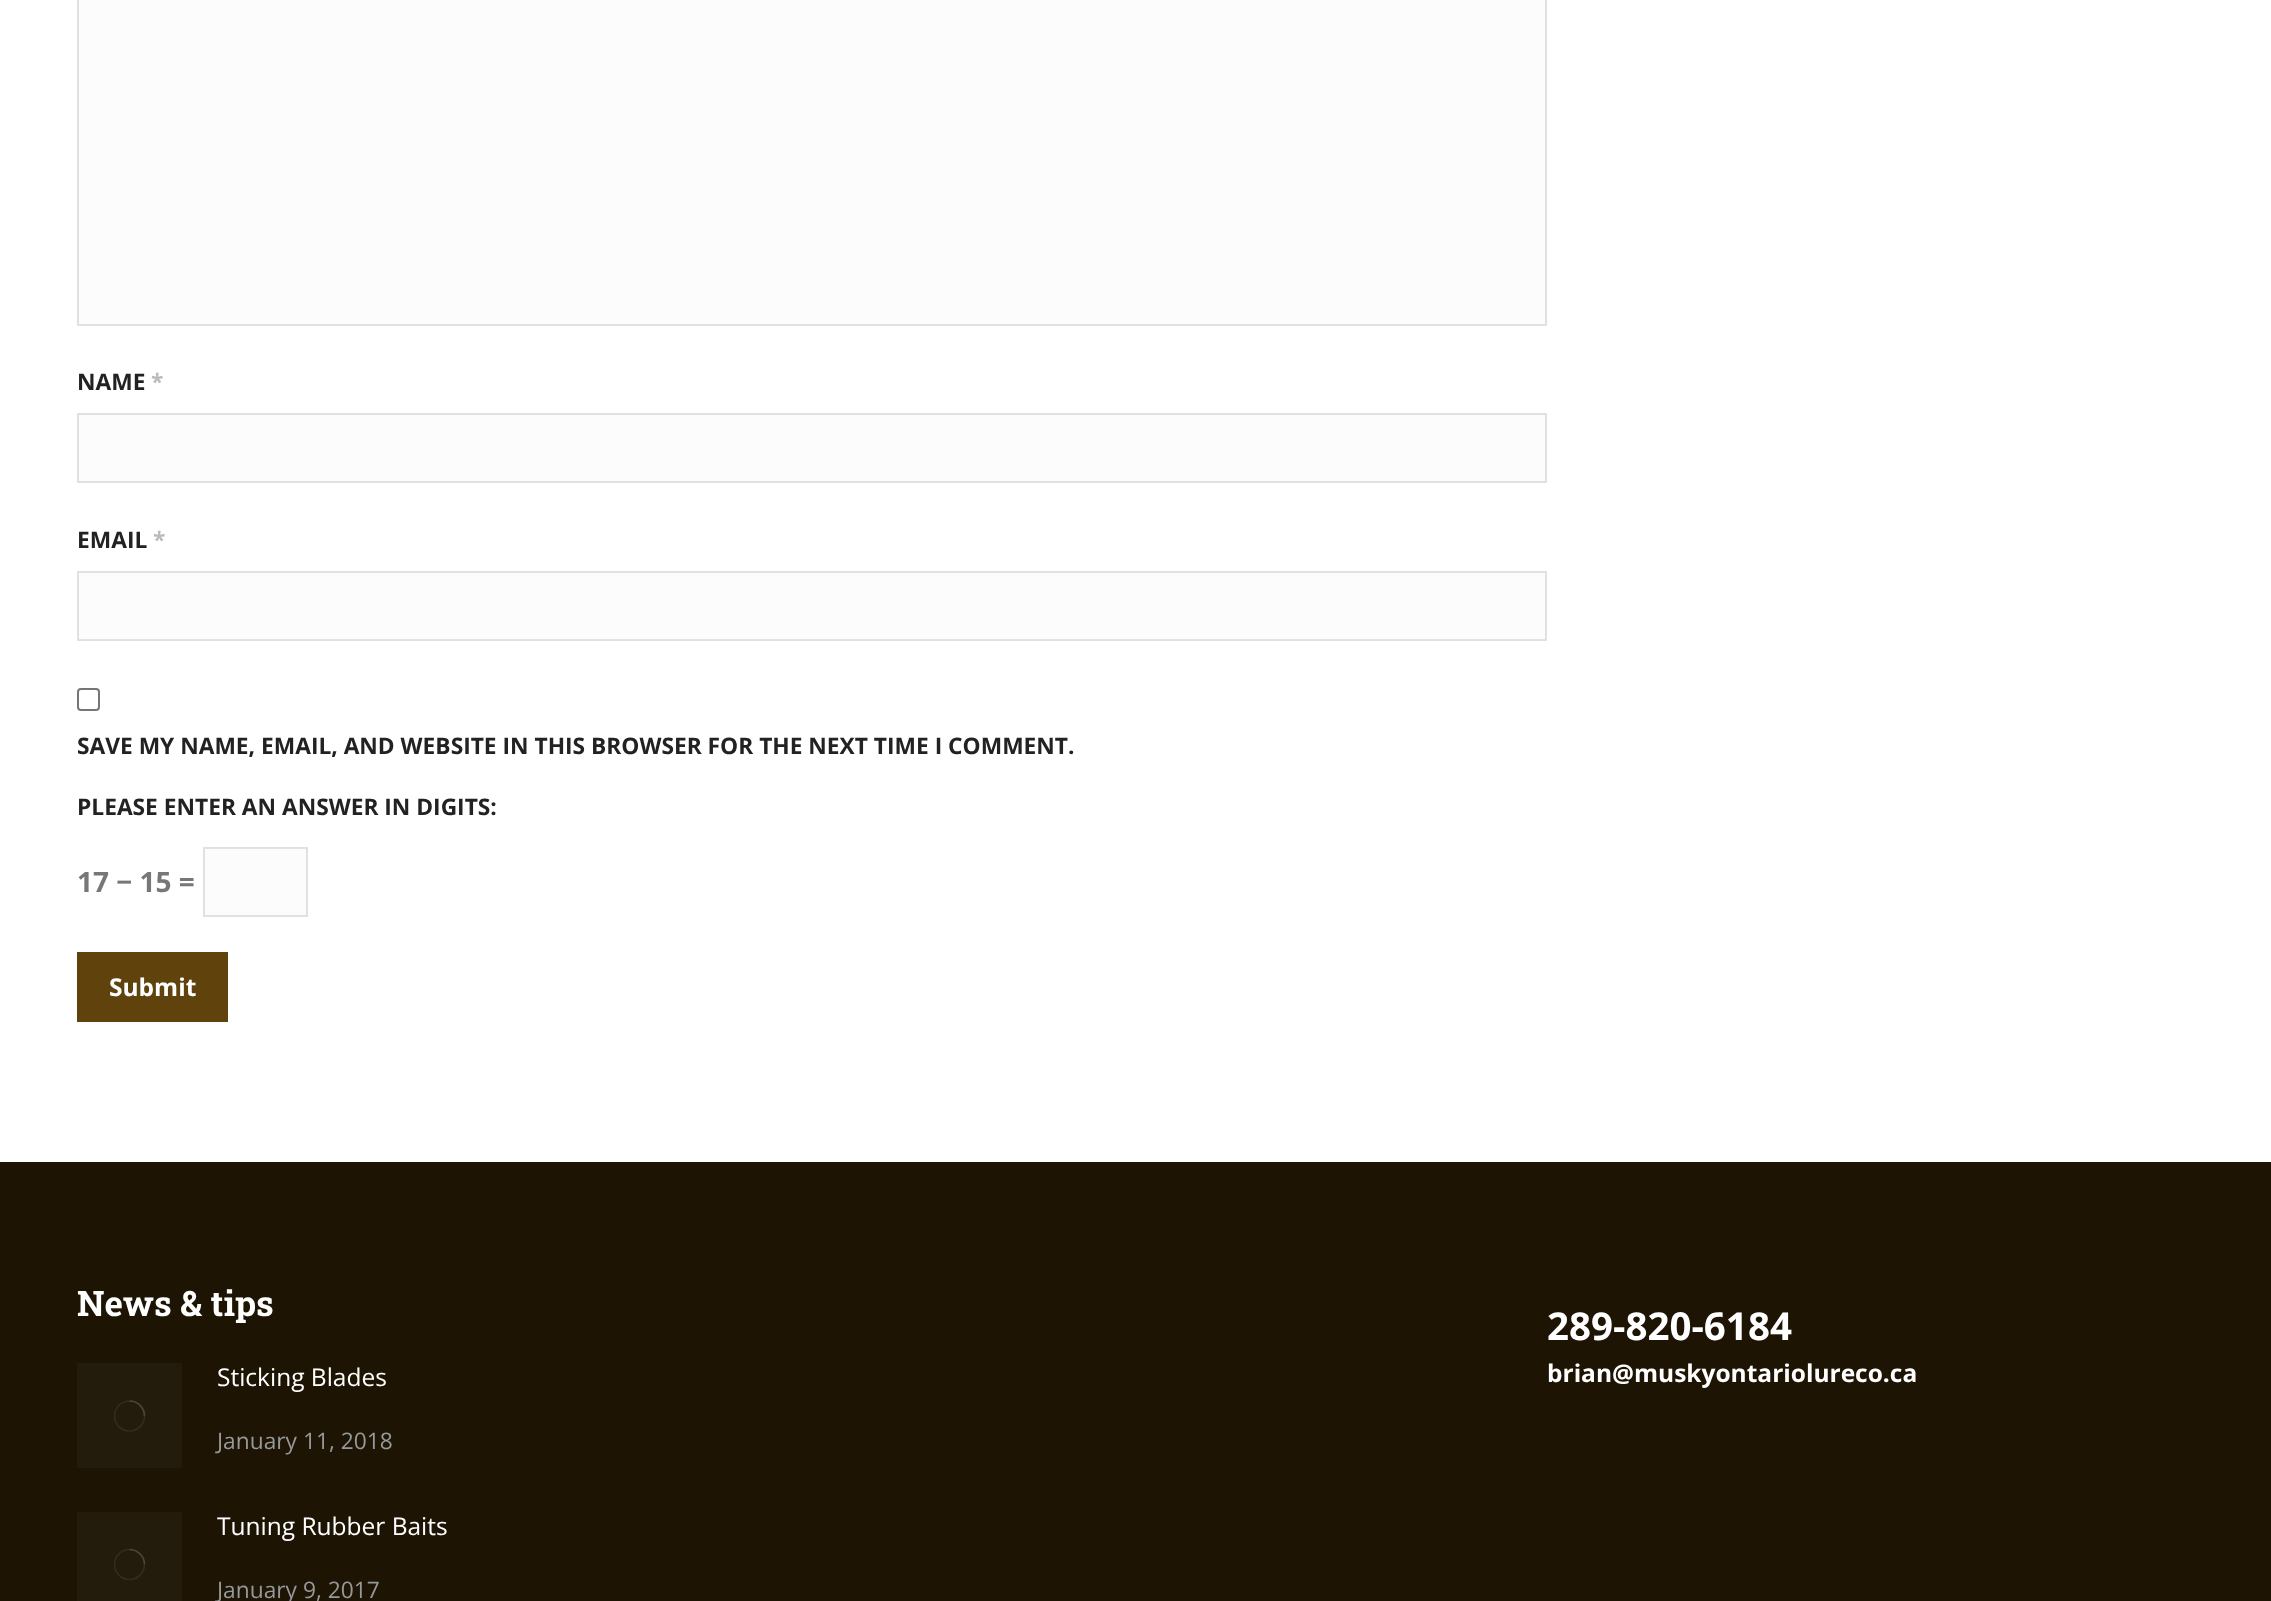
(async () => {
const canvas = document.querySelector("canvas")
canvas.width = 2271
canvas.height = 1601
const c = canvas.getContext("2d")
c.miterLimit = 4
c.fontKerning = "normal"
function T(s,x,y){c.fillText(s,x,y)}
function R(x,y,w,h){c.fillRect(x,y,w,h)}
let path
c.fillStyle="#fff"
R(0,0,2271,1601)
c.fillStyle="#fcfcfc"
c.beginPath()
c.rect(78,-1,1468,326)
c.fill()
c.strokeStyle="#e1e1e1"
c.lineWidth=2
c.stroke()
c.font="bold 22.75px Open Sans"
c.fillStyle="#222"
T("NAME",77,390)
c.fillStyle="#bbb"
T("*",151,390)
c.fillStyle="#fcfcfc"
c.beginPath()
c.rect(78,414,1468,68)
c.fill()
c.stroke()
c.fillStyle="#222"
T("EMAIL",77,548)
c.fillStyle="#bbb"
T("*",153,548)
c.fillStyle="#fcfcfc"
c.beginPath()
c.rect(78,572,1468,68)
c.fill()
c.stroke()
c.beginPath()
c.roundRect(78,689,21,21,3)
c.strokeStyle="#767676"
c.stroke()
c.fillStyle="#222"
T("SAVE MY NAME, EMAIL, AND WEBSITE IN THIS BROWSER FOR THE NEXT TIME I COMMENT.",77,754)
T("PLEASE ENTER AN ANSWER IN DIGITS:",77,815)
c.font="bold 28px Open Sans"
c.fillStyle="#777"
T("17 − 15 =",77,892)
c.fillStyle="#fcfcfc"
c.beginPath()
c.rect(204,848,103,68)
c.fill()
c.strokeStyle="#e1e1e1"
c.stroke()
c.fillStyle="#5f420c"
R(77,952,151,70)
c.font="bold 24.5px Open Sans"
c.fillStyle="#fff"
T("Submit",109,996)
c.fillStyle="#1d1403"
R(0,1162,2271,439)
c.font="bold 35px Roboto Slab"
c.fillStyle="#fff"
T("News & tips",77,1316)
c.fillStyle="#231b0b"
R(77,1363,105,105)
c.save()
c.beginPath()
c.rect(114,1400,31,32)
c.clip()
c.beginPath()
c.arc(129.5,1416,15,0,7)
c.strokeStyle="#332c1f"
c.lineWidth=1.7
c.stroke()
c.restore()
path = new Path2D("M144.5 1416c0-8.5-7-15-15-15")
c.strokeStyle="#96999c40"
c.lineWidth=1.7
c.stroke(path)
c.font="24.5px Open Sans"
c.fillStyle="#fff"
T("Sticking Blades",217,1386)
c.font="22.75px Open Sans"
c.fillStyle="#96999c"
T("January 11, 2018",217,1449)
c.fillStyle="#231b0b"
R(77,1512,105,89)
c.save()
c.beginPath()
c.rect(114,1549,31,31)
c.clip()
c.beginPath()
c.arc(129.5,1564.5,15,0,7)
c.strokeStyle="#332c1f"
c.stroke()
c.restore()
path = new Path2D("M144.5 1564.5c0-8-7-15-15-15")
c.stroke(path)
c.font="24.5px Open Sans"
c.fillStyle="#fff"
T("Tuning Rubber Baits",217,1535)
c.font="22.75px Open Sans"
c.fillStyle="#96999c"
T("January 9, 2017",217,1598)
c.font="bold 38.5px Open Sans"
c.fillStyle="#fff"
T("289-820-6184",1547,1340)
c.font="bold 24.5px Open Sans"
T("brian@muskyontariolureco.ca",1547,1382)
})()
